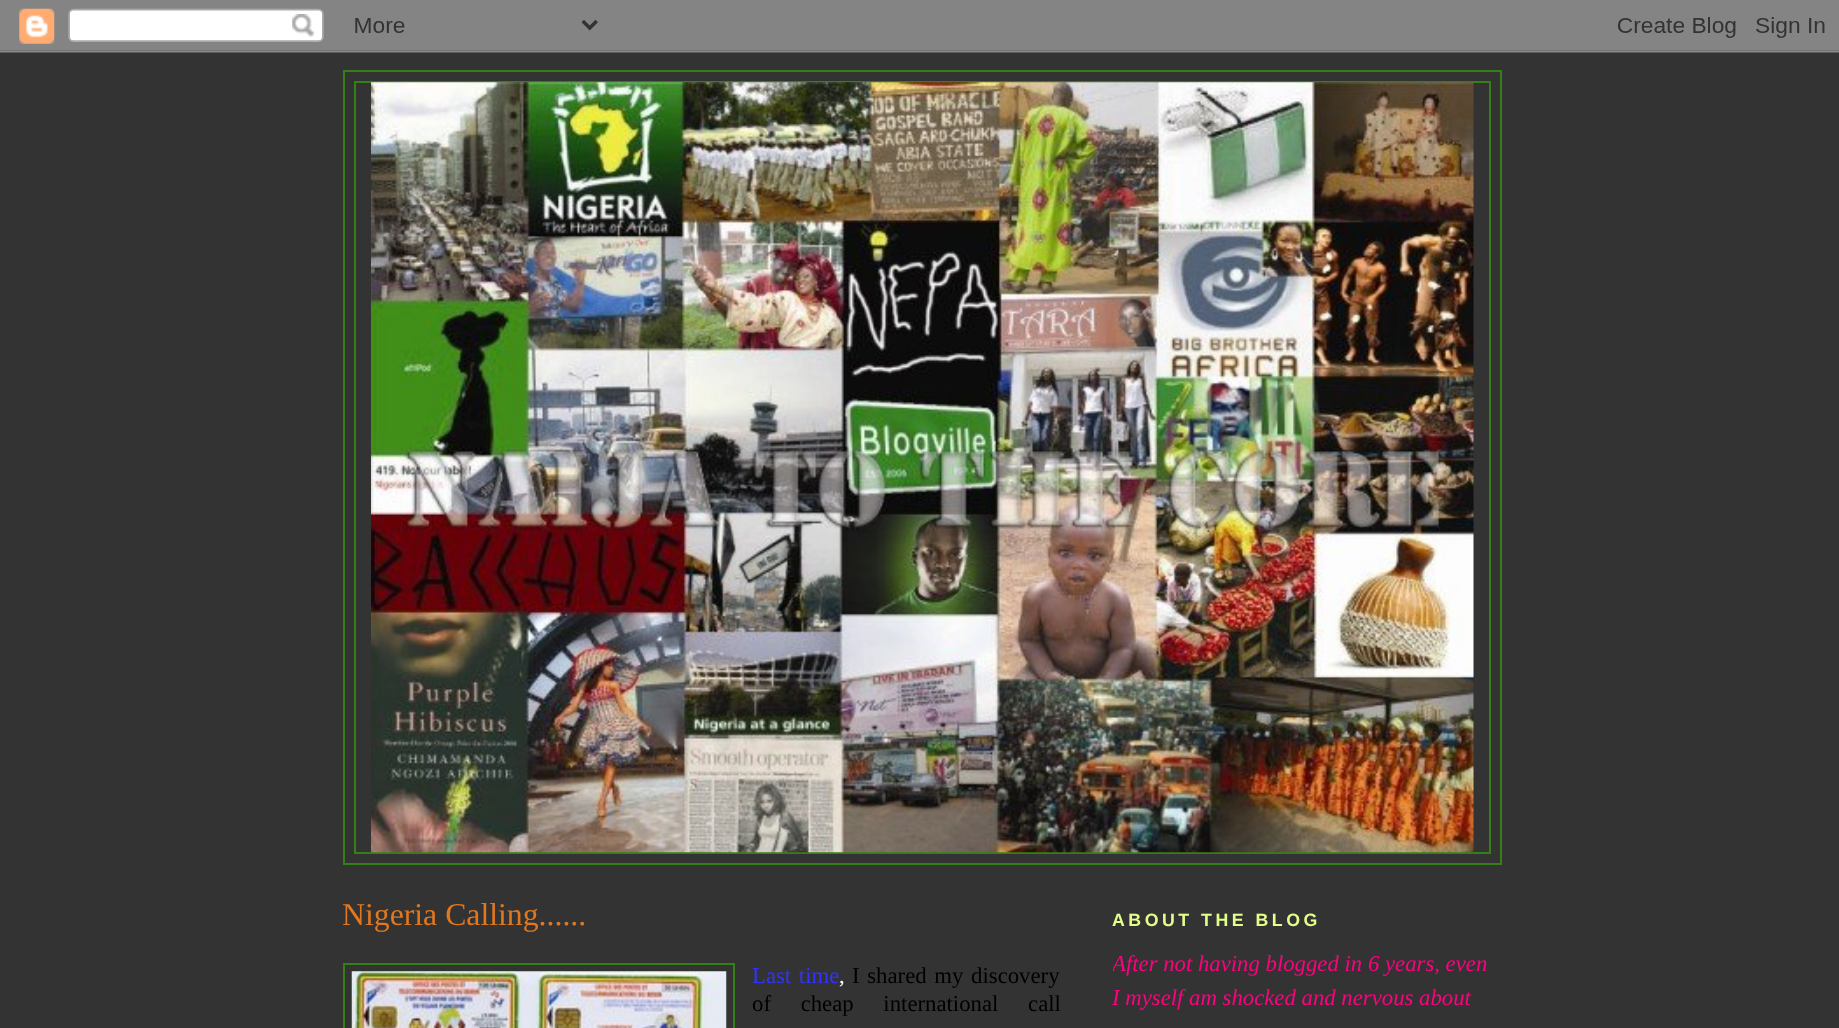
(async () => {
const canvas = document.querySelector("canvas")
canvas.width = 1839
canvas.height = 1028
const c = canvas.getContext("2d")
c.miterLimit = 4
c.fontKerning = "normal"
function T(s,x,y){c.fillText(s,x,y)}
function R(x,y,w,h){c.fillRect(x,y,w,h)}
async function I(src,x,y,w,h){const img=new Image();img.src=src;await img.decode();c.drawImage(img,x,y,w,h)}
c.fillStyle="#333"
R(0,0,1839,1028)
await I("1.png",0,0,1839,53)
c.strokeStyle="#348017"
c.lineWidth=2
c.strokeRect(344,71,1157,793)
c.strokeRect(355,82,1135,771)
await I("2.png",371,82,1103,771)
c.font="31.75px Liberation Serif"
c.fillStyle="#e1771e"
T("Nigeria Calling......",342,925)
c.strokeRect(344,964,390,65)
await I("3.png",351,971,376,57)
c.wordSpacing="2px"
c.font="22.75px Liberation Serif"
c.fillStyle="#33f"
T("Last time",752,983)
c.wordSpacing="0px"
c.fillStyle="#fff"
T(",",839,983)
c.wordSpacing="2px"
c.fillStyle="#000"
T("I shared my discovery",852,983)
c.wordSpacing="24px"
T("of cheap international call",752,1011)
c.letterSpacing="3.5px"
c.wordSpacing="0px"
c.font="bold 17.75px Liberation Sans"
c.fillStyle="#e2ff8c"
T("ABOUT THE BLOG",1112,926)
c.save()
c.beginPath()
c.rect(1113,882,385,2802)
c.clip()
c.letterSpacing="0px"
c.font="italic 22.75px Liberation Serif"
c.fillStyle="#ff0080"
T("After not having blogged in 6 years, even",1112,971)
c.restore()
c.letterSpacing="0px"
c.font="italic 22.75px Liberation Serif"
c.fillStyle="#ff0080"
T("I myself am shocked and nervous about",1112,1005)
})()
